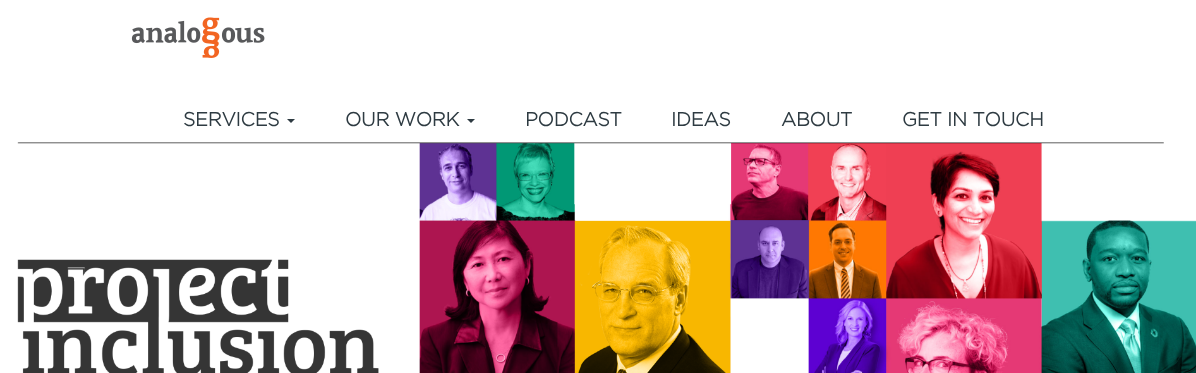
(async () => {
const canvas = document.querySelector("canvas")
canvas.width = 1196
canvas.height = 373
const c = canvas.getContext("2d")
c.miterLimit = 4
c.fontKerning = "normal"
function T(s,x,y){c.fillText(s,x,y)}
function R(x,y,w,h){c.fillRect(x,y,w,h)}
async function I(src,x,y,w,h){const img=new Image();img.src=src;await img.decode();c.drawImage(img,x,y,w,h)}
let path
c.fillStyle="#fff"
R(0,0,1196,373)
await I("1.png",131,17,134,41)
c.letterSpacing="-0.25px"
c.font="bold 19.25px Gotham"
c.fillStyle="#2e3b42"
T("SERVICES",183,126)
path = new Path2D("M287 119h8l-4 4z")
c.fill(path)
T("OUR WORK",345,126)
path = new Path2D("M467 119h8l-4 4z")
c.fill(path)
T("PODCAST",525,126)
T("IDEAS",671,126)
T("ABOUT",781,126)
T("GET IN TOUCH",902,126)
await I("2.png",17,142,1179,231)
})()
